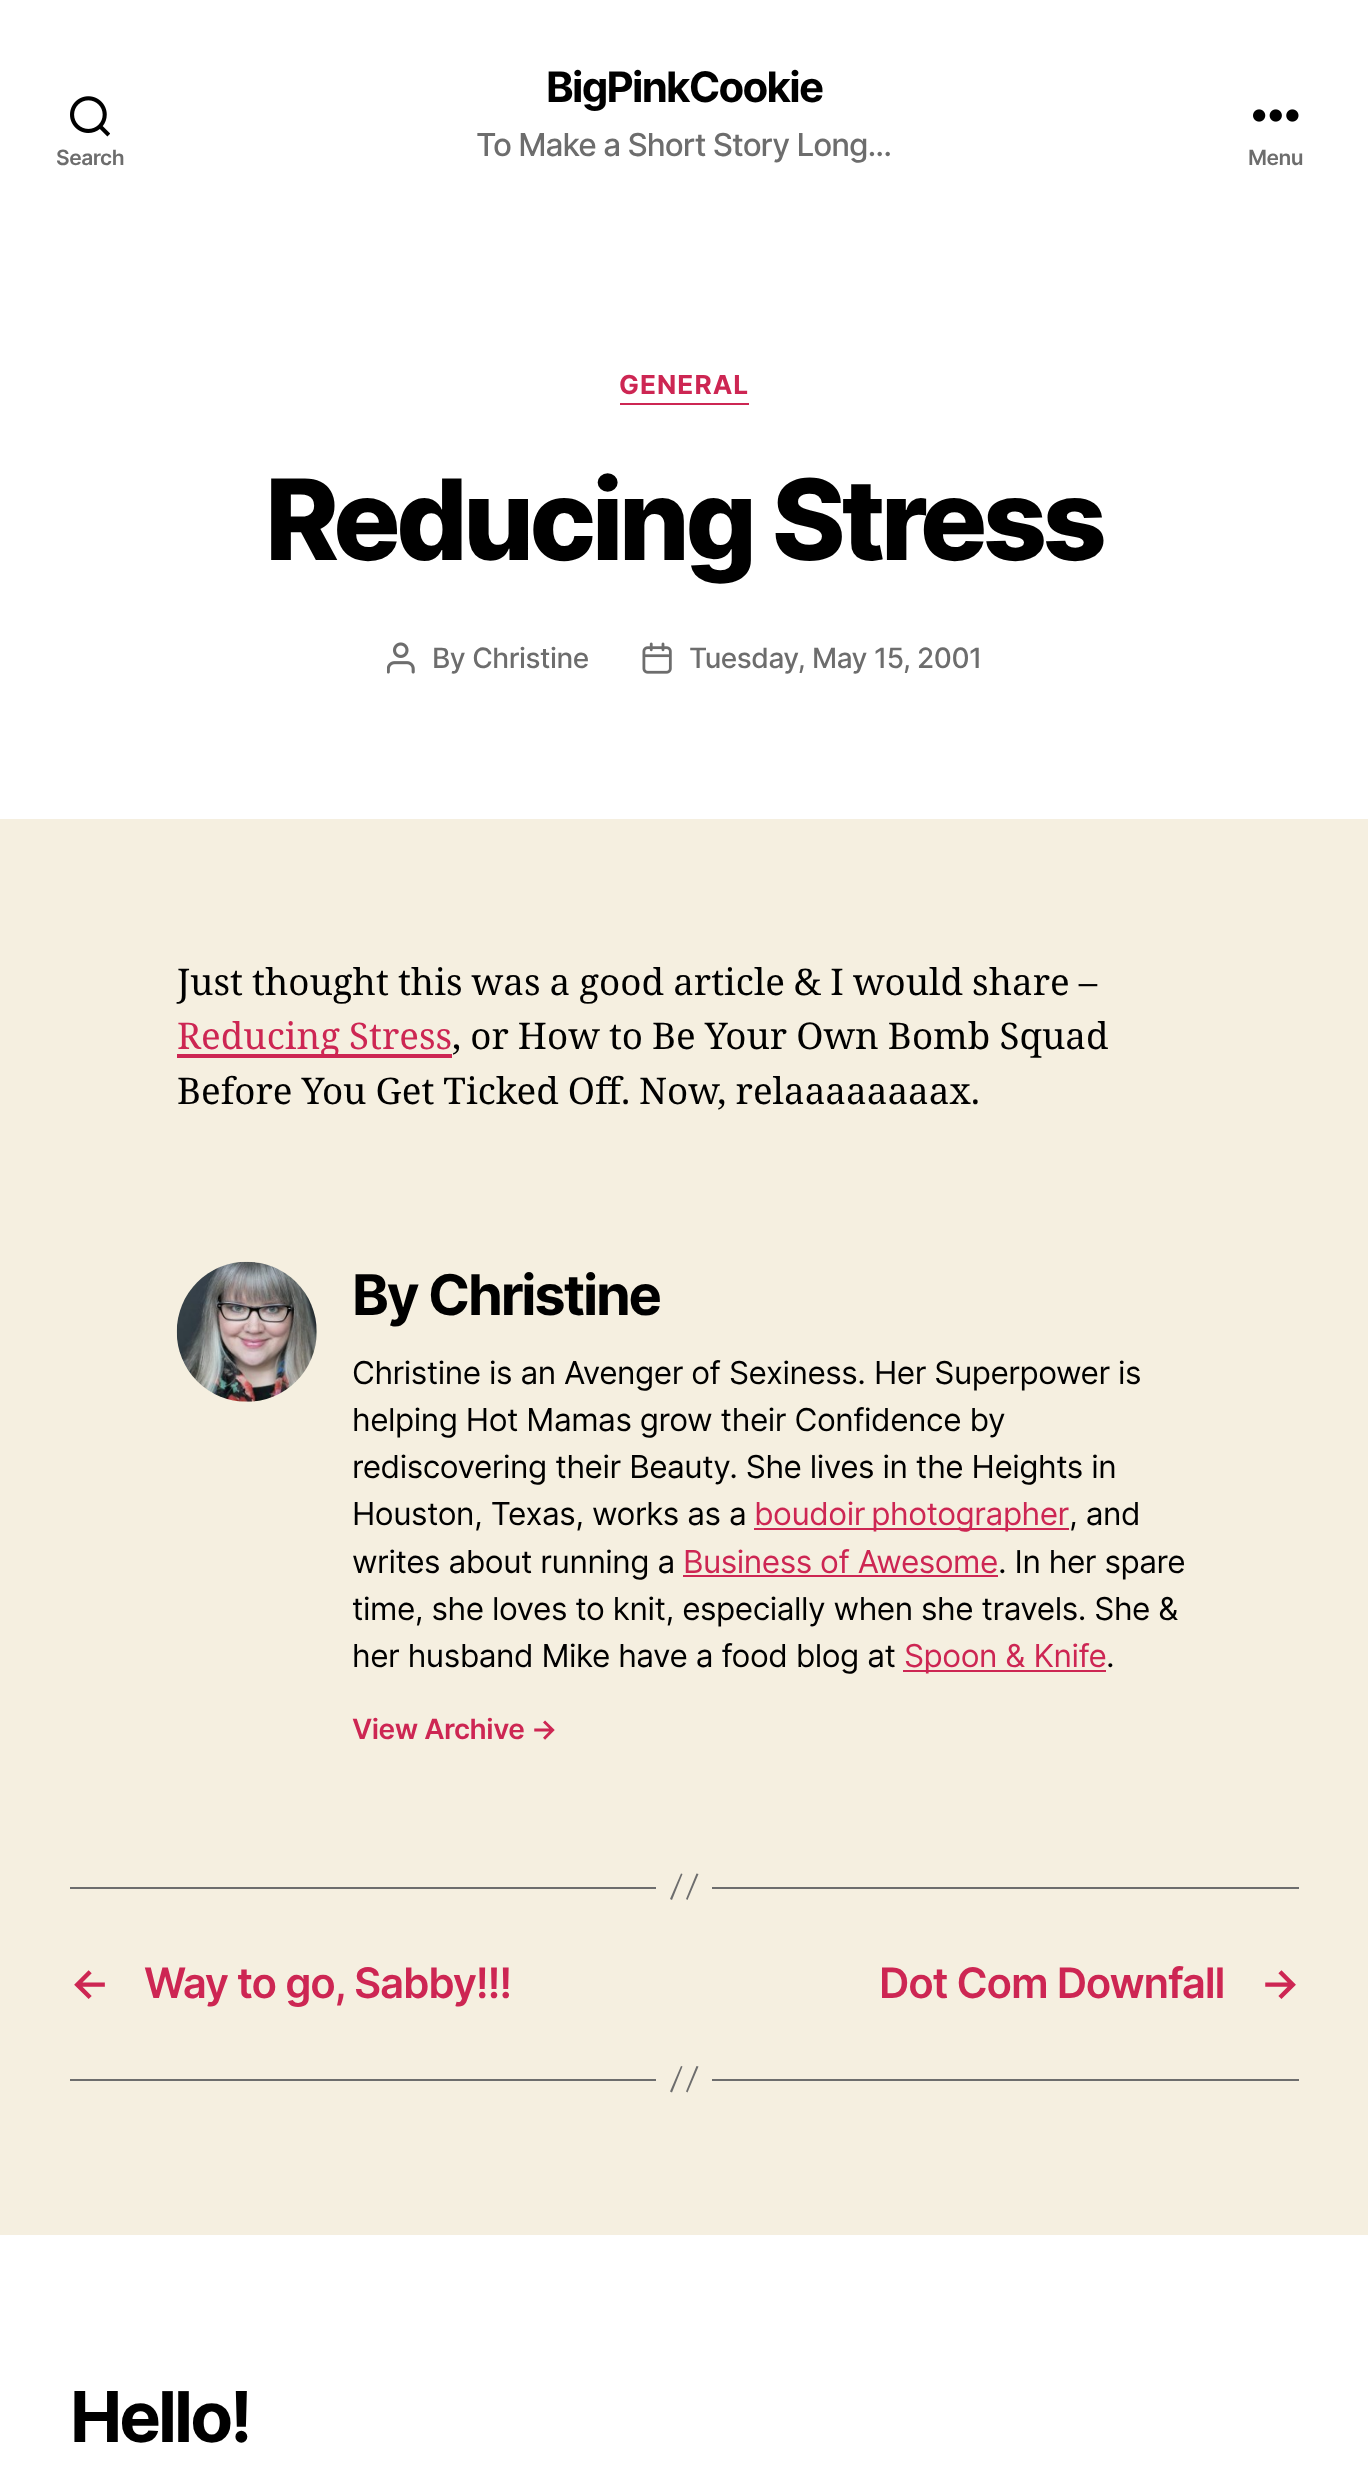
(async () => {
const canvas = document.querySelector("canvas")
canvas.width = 1368
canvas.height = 2470
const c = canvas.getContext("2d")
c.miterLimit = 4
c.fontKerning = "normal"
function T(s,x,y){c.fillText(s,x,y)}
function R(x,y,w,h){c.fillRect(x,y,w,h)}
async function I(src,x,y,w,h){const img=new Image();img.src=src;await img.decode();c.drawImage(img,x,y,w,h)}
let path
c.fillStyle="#f5efe0"
R(0,0,1368,2470)
c.fillStyle="#fff"
R(0,0,1368,819)
await I("1.png",70,96,40,41)
c.letterSpacing="-0.47px"
c.font="600 21px Inter"
c.fillStyle="#6d6d6d"
T("Search",56,165)
c.letterSpacing="-1.75px"
c.font="bold 42px Inter"
c.fillStyle="#000"
T("BigPinkCookie",546,102)
c.letterSpacing="-1px"
c.font="500 31.5px Inter"
c.fillStyle="#6d6d6d"
T("To Make a Short Story Long...",476,156)
await I("2.png",1253,109,46,13)
c.letterSpacing="-0.47px"
c.font="600 21px Inter"
T("Menu",1248,165)
c.fillStyle="#cd2653"
R(620,403,129,2)
c.letterSpacing="1px"
c.font="bold 26.25px Inter"
T("GENERAL",619,394)
c.letterSpacing="-4.7px"
c.font="800 112px Inter"
c.fillStyle="#000"
T("Reducing Stress",265,560)
await I("3.png",387,642,28,32)
c.letterSpacing="-0.47px"
c.font="500 28px Inter"
c.fillStyle="#6d6d6d"
T("By Christine",432,668)
await I("4.png",642,642,30,32)
T("Tuesday, May 15, 2001",689,668)
c.letterSpacing="0px"
c.wordSpacing="-0.5px"
c.font="36.75px Noto Serif"
c.fillStyle="#000"
T("Just thought this was a good article & I would share –",177,995)
c.fillStyle="#cd2653"
R(177,1054,275,4)
T("Reducing Stress",177,1049)
c.fillStyle="#000"
T(", or How to Be Your Own Bomb Squad",452,1049)
T("Before You Get Ticked Off.",177,1104)
T("Now, relaaaaaaaax.",639,1104)
await I("5.png",176,1261,141,141)
c.letterSpacing="-2.25px"
c.wordSpacing="0px"
c.font="bold 56px Inter"
T("By Christine",352,1315)
c.letterSpacing="-0.47px"
c.font="31.5px Inter"
T("Christine is an Avenger of Sexiness. Her Superpower is",352,1384)
T("helping Hot Mamas grow their Confidence by",352,1431)
T("rediscovering their Beauty. She lives in the Heights in",352,1478)
T("Houston, Texas, works as a",352,1525)
c.fillStyle="#cd2653"
R(754,1528,315,2)
c.wordSpacing="-2px"
T("boudoir photographer",754,1525)
c.wordSpacing="0px"
c.fillStyle="#000"
T(", and",1069,1525)
T("writes about running a",352,1573)
c.fillStyle="#cd2653"
T("Business of Awesome",683,1573)
R(683,1575,315,2)
c.fillStyle="#000"
T(". In her spare",998,1573)
T("time, she loves to knit, especially when she travels. She &",352,1620)
T("her husband Mike have a food blog at",352,1667)
c.fillStyle="#cd2653"
R(903,1670,203,2)
T("Spoon & Knife",904,1667)
c.fillStyle="#000"
T(".",1106,1667)
c.font="600 28px Inter"
c.fillStyle="#cd2653"
T("View Archive →",352,1739)
c.fillStyle="#6d6d6d"
R(712,1887,587,2)
R(70,1887,586,2)
path = new Path2D("M681 1873.5l1.5 .5l-10.5 26l-2-1zm15.5 0l2 .5l-11 26l-1.5-1z")
c.fill(path)
c.letterSpacing="-1.2px"
c.font="600 42px Inter"
c.fillStyle="#cd2653"
T("←",70,1998)
T("Way to go, Sabby!!!",144,1998)
T("Dot Com Downfall",879,1998)
T("→",1260,1998)
c.fillStyle="#6d6d6d"
R(712,2079,587,2)
R(70,2079,586,2)
path = new Path2D("M681 2066l1.5 .5l-10.5 26l-2-1zm15.5 0l2 .5l-11 26l-1.5-1z")
c.fill(path)
c.fillStyle="#fff"
R(0,2235,1368,235)
c.letterSpacing="-3px"
c.font="bold 70px Inter"
c.fillStyle="#000"
T("Hello!",70,2442)
})()
